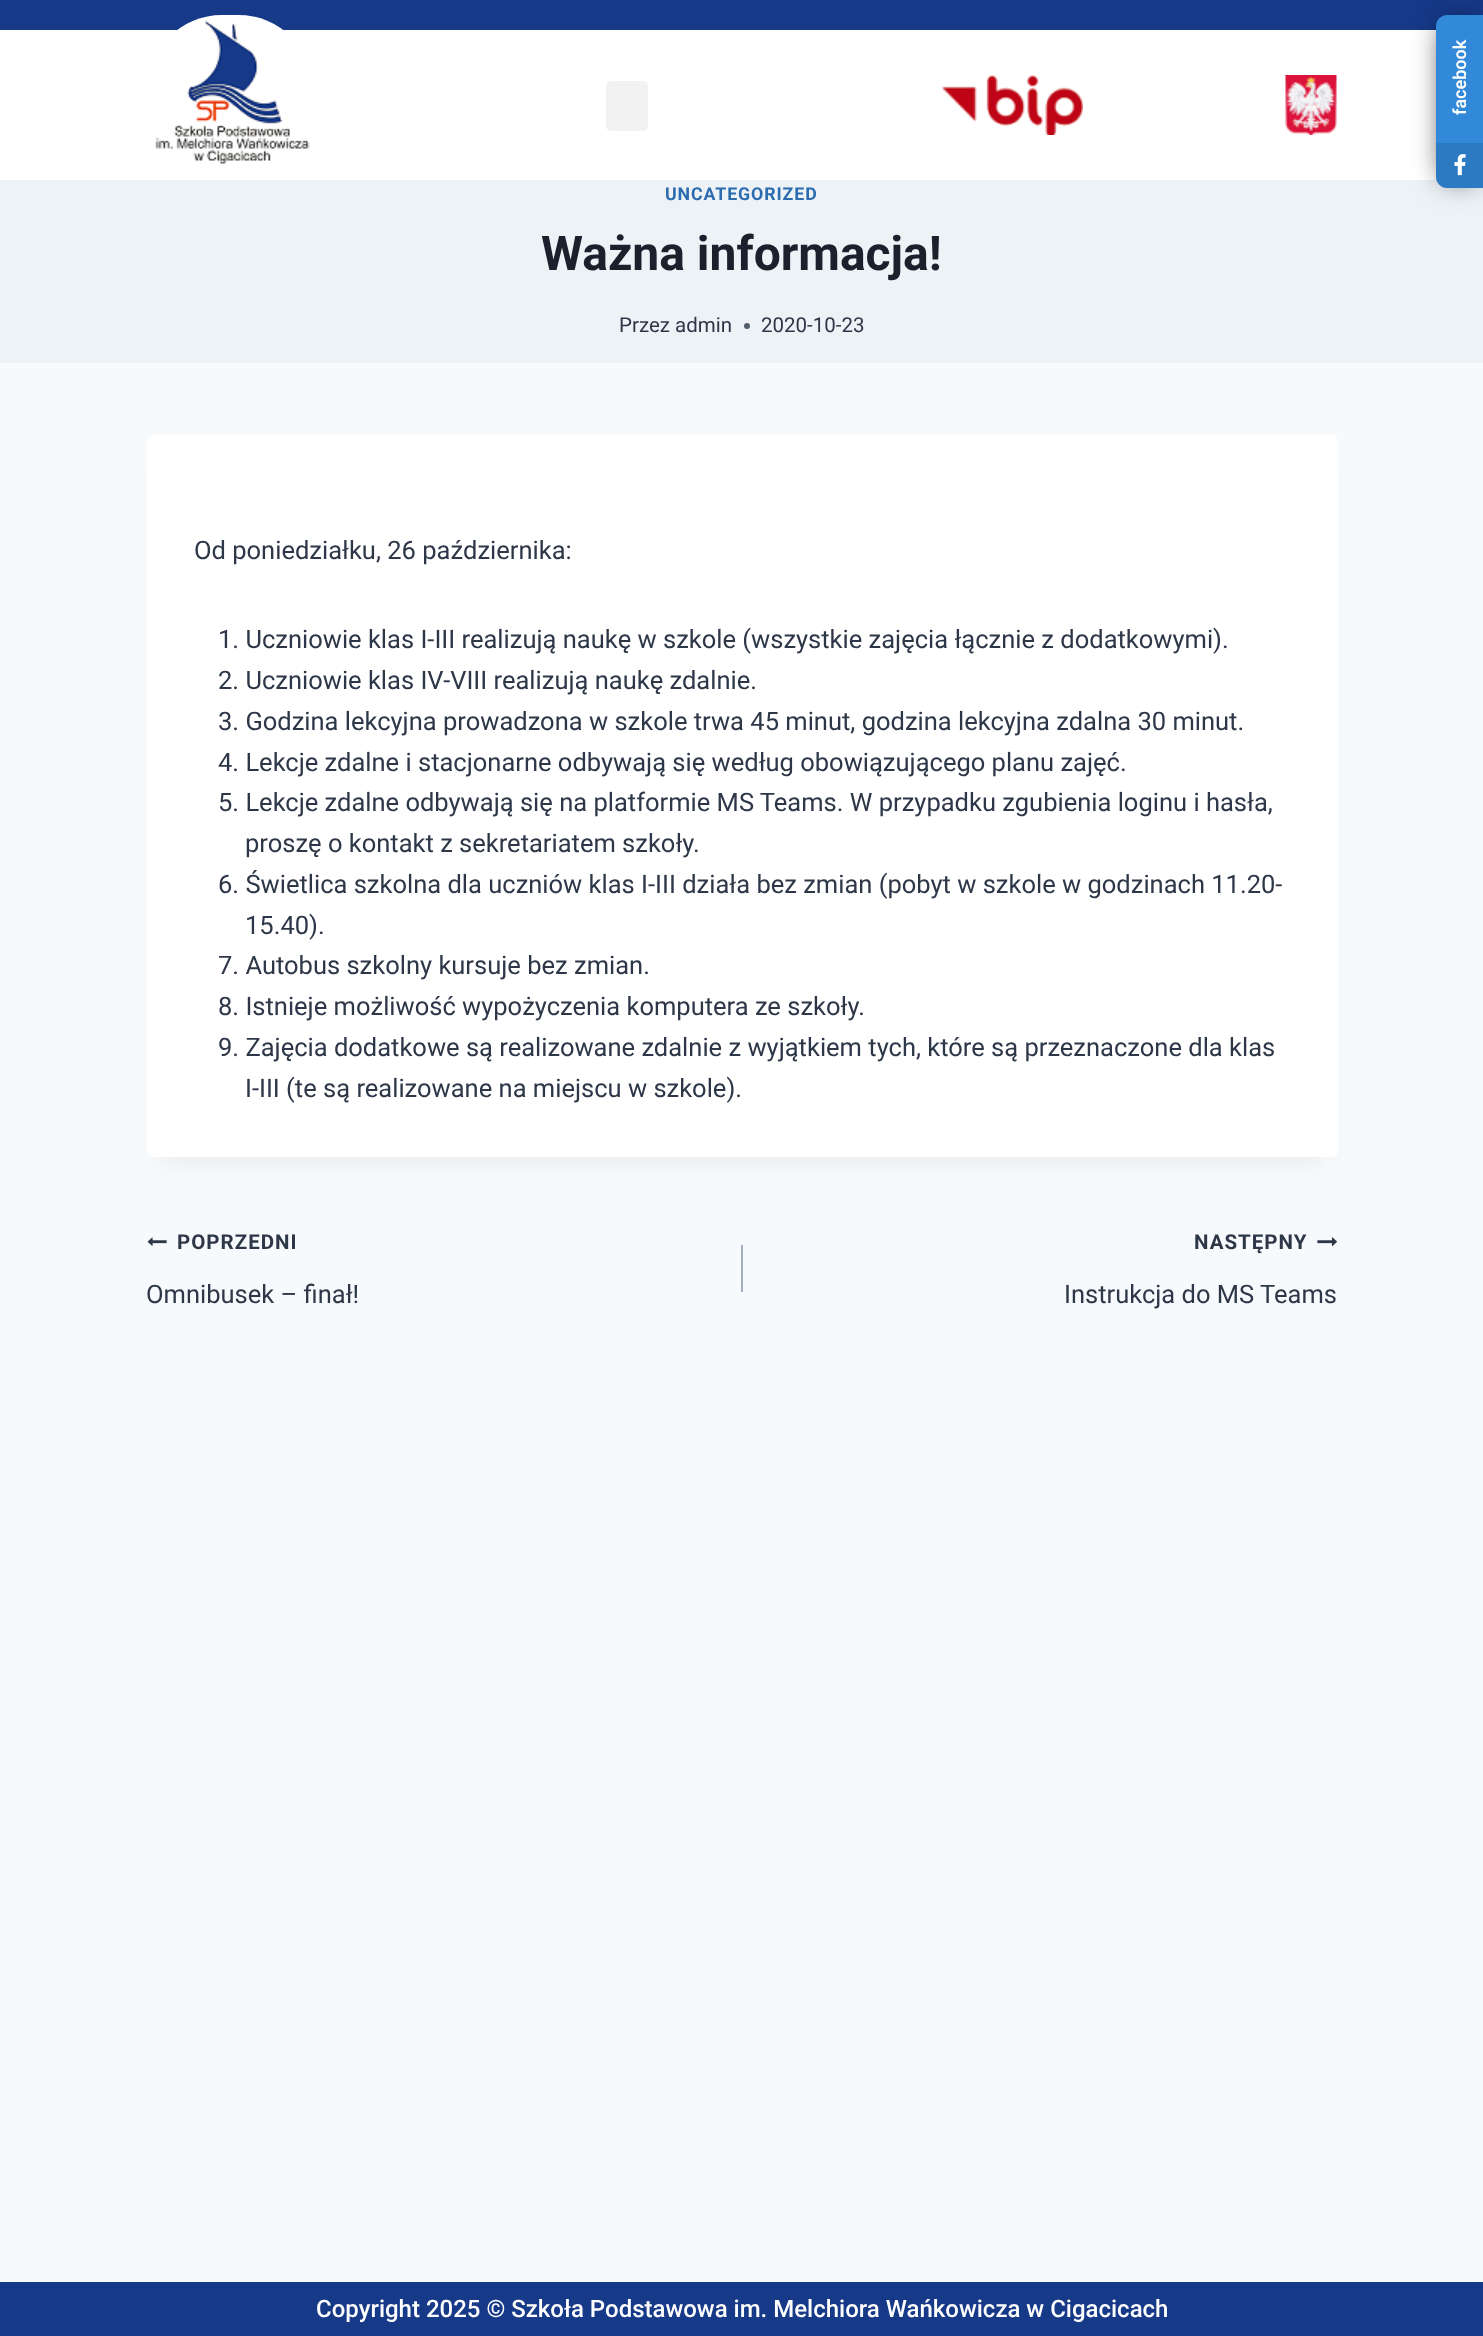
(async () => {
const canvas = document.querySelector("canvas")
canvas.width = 1483
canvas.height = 2336
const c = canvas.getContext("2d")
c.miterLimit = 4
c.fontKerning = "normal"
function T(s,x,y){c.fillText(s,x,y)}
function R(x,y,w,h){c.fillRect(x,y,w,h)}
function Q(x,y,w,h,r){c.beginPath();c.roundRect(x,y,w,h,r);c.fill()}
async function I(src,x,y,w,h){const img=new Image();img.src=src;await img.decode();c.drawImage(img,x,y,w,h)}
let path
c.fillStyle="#f7fafc"
R(0,0,1483,2336)
c.fillStyle="#fff"
R(0,30,1437,150)
c.fillStyle="#163988"
R(0,0,1483,30)
c.fillStyle="#edf2f7"
R(0,180,1483,183)
c.fillStyle="#000"
c.filter="blur(15px)"
c.beginPath()
c.rect(1446,26,27,151)
c.fill()
c.filter="none"
c.fillStyle="#3289d9"
path = new Path2D("M1447 15h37v173h-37c-6 0-11-5-11-11v-151c0-6 5-11 11-11z")
c.fill(path)
c.font="600 18px Roboto"
c.fillStyle="#fff"
c.save()
c.translate(1466,115)
c.rotate(-90 * Math.PI / 180)
c.fillText("facebook",0,0)
c.restore()
c.fillStyle="#0000001a"
path = new Path2D("M1436 143h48v45h-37c-6 0-11-5-11-11z")
c.fill(path)
await I("1.png",1454,154,12,22)
await I("2.png",155,15,155,149)
c.fillStyle="#f2f2f2"
Q(606,81,42,50,5)
await I("3.png",942,75,141,60)
await I("4.png",1285,75,52,60)
c.letterSpacing="0.9px"
c.font="bold 17.75px Roboto"
c.fillStyle="#2b6cb0"
T("UNCATEGORIZED",665,200)
c.letterSpacing="0px"
c.font="bold 48px Roboto"
c.fillStyle="#1a202c"
T("Ważna informacja!",541,270)
c.font="20.5px Roboto"
c.fillStyle="#2d3748"
T("Przez admin",619,332)
c.fillStyle="#535c6b"
c.beginPath()
c.arc(747,326,3,0,7)
c.fill()
c.fillStyle="#2d3748"
T("2020-10-23",761,332)
c.fillStyle="#0000000d"
c.filter="blur(11px)"
c.beginPath()
c.rect(162,473,1161,691)
c.fill()
c.filter="none"
c.fillStyle="#fff"
Q(147,435,1191,722,6)
c.font="25.5px Roboto"
c.fillStyle="#2d3748"
T("Od poniedziałku, 26 października:",194,559)
T("1. Uczniowie klas I-III realizują naukę w szkole (wszystkie zajęcia łącznie z dodatkowymi).",218,648)
T("2. Uczniowie klas IV-VIII realizują naukę zdalnie.",218,689)
T("3. Godzina lekcyjna prowadzona w szkole trwa 45 minut, godzina lekcyjna zdalna 30 minut.",218,730)
T("4. Lekcje zdalne i stacjonarne odbywają się według obowiązującego planu zajęć.",218,771)
T("5. Lekcje zdalne odbywają się na platformie MS Teams. W przypadku zgubienia loginu i hasła,",218,811)
T("proszę o kontakt z sekretariatem szkoły.",245,852)
T("6. Świetlica szkolna dla uczniów klas I-III działa bez zmian (pobyt w szkole w godzinach 11.20-",218,893)
T("15.40).",245,934)
T("7. Autobus szkolny kursuje bez zmian.",218,974)
T("8. Istnieje możliwość wypożyczenia komputera ze szkoły.",218,1015)
T("9. Zajęcia dodatkowe są realizowane zdalnie z wyjątkiem tych, które są przeznaczone dla klas",218,1056)
T("I-III (te są realizowane na miejscu w szkole).",245,1097)
await I("5.png",147,1237,20,9)
c.letterSpacing="1px"
c.font="bold 20.5px Roboto"
T("POPRZEDNI",177,1249)
c.letterSpacing="0px"
c.font="25.5px Roboto"
T("Omnibusek – finał!",146,1303)
c.fillStyle="#a0aec0"
R(741,1245,2,47)
c.letterSpacing="1px"
c.font="bold 20.5px Roboto"
c.fillStyle="#2d3748"
T("NASTĘPNY",1194,1249)
await I("6.png",1317,1237,20,9)
c.letterSpacing="0px"
c.font="25.5px Roboto"
T("Instrukcja do MS Teams",1064,1303)
c.fillStyle="#163988"
R(0,2282,1483,54)
c.font="500 24px Roboto"
c.fillStyle="#fff"
T("Copyright 2025 © Szkoła Podstawowa im. Melchiora Wańkowicza w Cigacicach",316,2317)
})()
